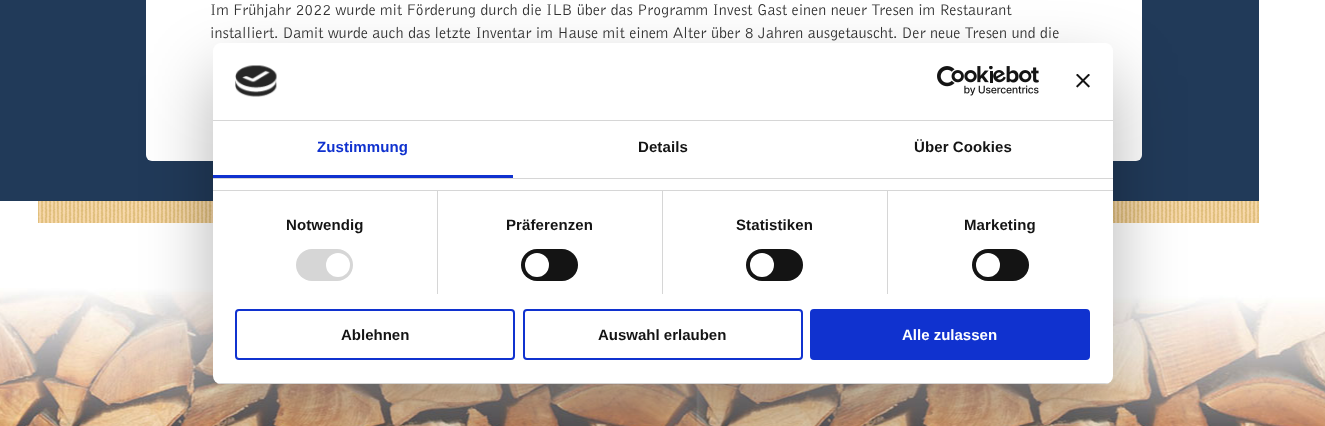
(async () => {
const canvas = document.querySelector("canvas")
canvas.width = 1325
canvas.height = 426
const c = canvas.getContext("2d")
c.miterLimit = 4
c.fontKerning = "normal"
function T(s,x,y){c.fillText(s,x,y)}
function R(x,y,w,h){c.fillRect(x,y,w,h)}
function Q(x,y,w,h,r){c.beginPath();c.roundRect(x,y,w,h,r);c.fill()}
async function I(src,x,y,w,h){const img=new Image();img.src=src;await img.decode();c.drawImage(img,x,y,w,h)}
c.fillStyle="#fff"
R(0,0,1325,426)
c.fillStyle="#213a59"
R(0,0,1259,201)
c.fillStyle="#fff"
Q(146,-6,996,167,6)
c.font="16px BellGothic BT"
c.fillStyle="#333"
T("Im Frühjahr 2022 wurde mit Förderung durch die ILB über das Programm Invest Gast einen neuer Tresen im Restaurant",210,15)
T("installiert. Damit wurde auch das letzte Inventar im Hause mit einem Alter über 8 Jahren ausgetauscht. Der neue Tresen und die",210,38)
await I("1.png",38,201,1221,22)
await I("2.png",0,288,1325,138)
c.fillStyle="#0000004d"
c.filter="blur(34px)"
c.beginPath()
c.roundRect(213,75,900,341,8)
c.fill()
c.filter="none"
c.fillStyle="#fff"
Q(213,43,900,341,8)
c.fillStyle="#d6d6d6"
R(213,120,900,1)
await I("3.png",235,65,42,32)
await I("4.png",937,66,102,30)
await I("5.png",1076,74,14,14)
R(213,178,900,1)
c.fillStyle="#1032cf"
R(213,175,300,3)
c.letterSpacing="0.1px"
c.font="bold 15px Liberation Sans"
T("Zustimmung",317,152)
c.fillStyle="#141414"
T("Details",638,152)
T("Über Cookies",914,152)
c.fillStyle="#d6d6d6"
R(213,190,900,1)
R(437,191,1,103)
c.fillStyle="#141414"
T("Notwendig",286,230)
c.fillStyle="#d6d6d6"
Q(296,249,57,32,16)
c.fillStyle="#fff"
c.beginPath()
c.arc(338,265,12,0,7)
c.fill()
c.fillStyle="#d6d6d6"
R(662,191,1,103)
c.fillStyle="#141414"
T("Präferenzen",506,230)
Q(521,249,57,32,16)
c.fillStyle="#fff"
c.beginPath()
c.arc(537,265,12,0,7)
c.fill()
c.fillStyle="#d6d6d6"
R(887,191,1,103)
c.fillStyle="#141414"
T("Statistiken",736,230)
Q(746,249,57,32,16)
c.fillStyle="#fff"
c.beginPath()
c.arc(762,265,12,0,7)
c.fill()
c.fillStyle="#141414"
T("Marketing",964,230)
Q(972,249,57,32,16)
c.fillStyle="#fff"
c.beginPath()
c.arc(988,265,12,0,7)
c.fill()
c.save()
c.beginPath()
c.roundRect(213,43,900,341,8)
c.clip()
c.fillStyle="#d6d6d6"
R(213,383,900,1)
c.restore()
c.beginPath()
c.roundRect(236,310,278,49,3)
c.strokeStyle="#1032cf"
c.lineWidth=2
c.stroke()
c.letterSpacing="0px"
c.fillStyle="#141414"
T("Ablehnen",341,340)
c.beginPath()
c.roundRect(524,310,278,49,3)
c.stroke()
T("Auswahl erlauben",598,340)
c.fillStyle="#1032cf"
c.beginPath()
c.roundRect(811,310,278,49,3)
c.fill()
c.stroke()
c.fillStyle="#fff"
T("Alle zulassen",902,340)
})()
